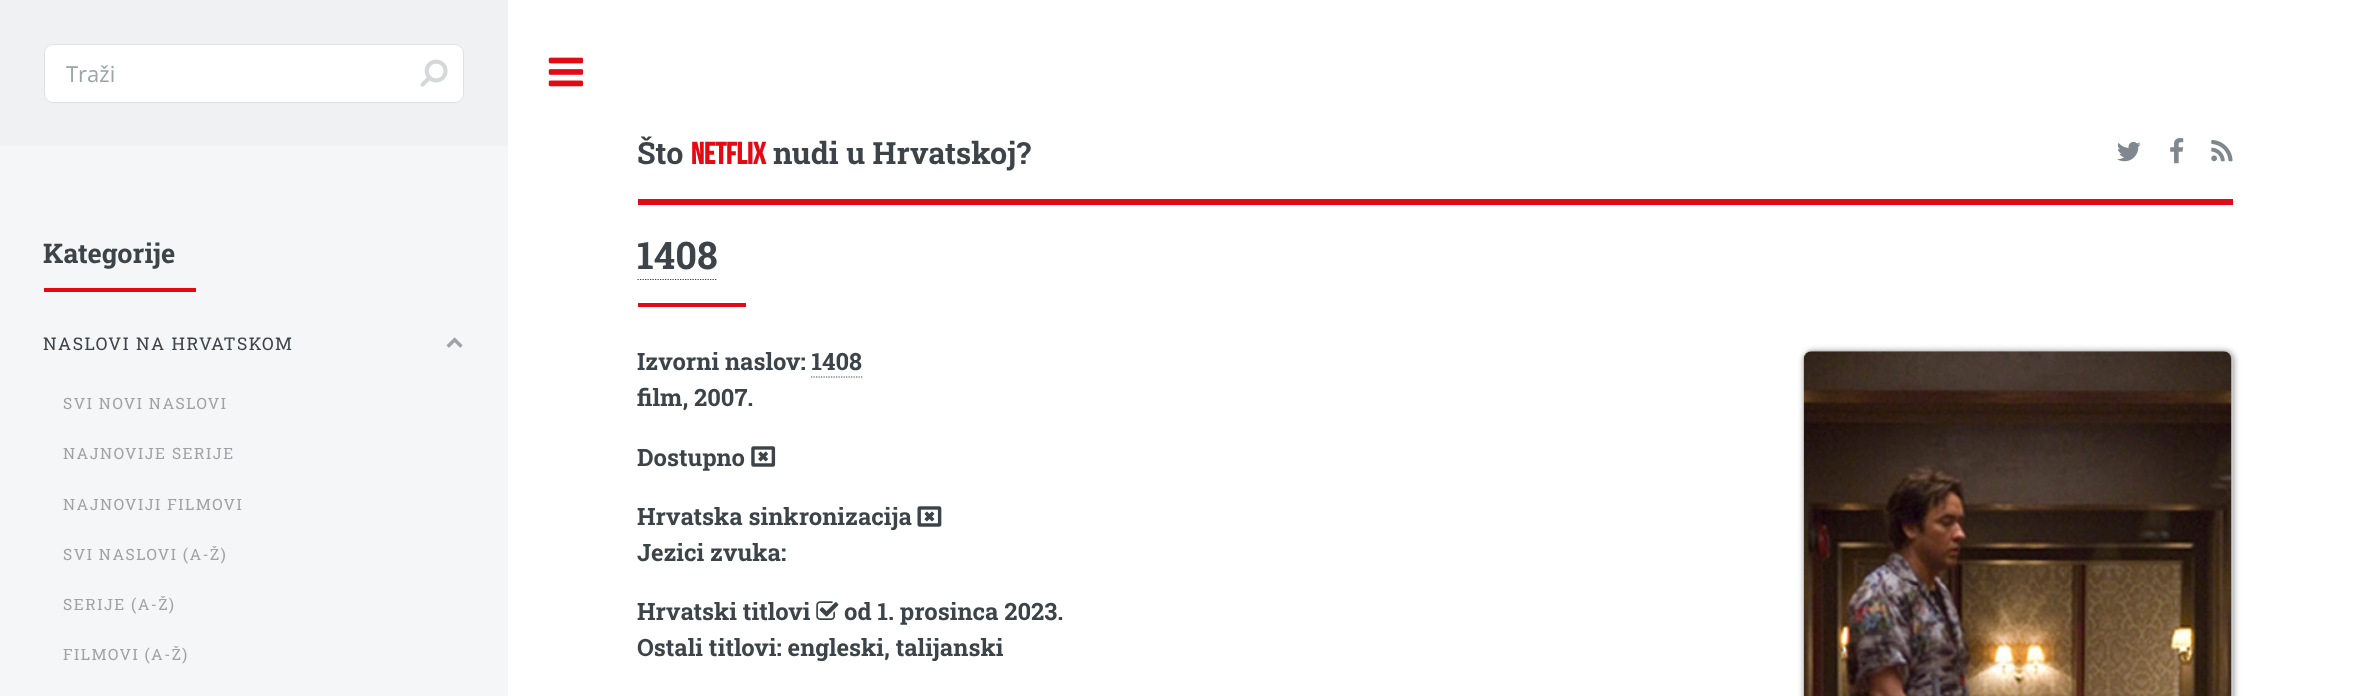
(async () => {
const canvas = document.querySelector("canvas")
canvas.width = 2362
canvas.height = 696
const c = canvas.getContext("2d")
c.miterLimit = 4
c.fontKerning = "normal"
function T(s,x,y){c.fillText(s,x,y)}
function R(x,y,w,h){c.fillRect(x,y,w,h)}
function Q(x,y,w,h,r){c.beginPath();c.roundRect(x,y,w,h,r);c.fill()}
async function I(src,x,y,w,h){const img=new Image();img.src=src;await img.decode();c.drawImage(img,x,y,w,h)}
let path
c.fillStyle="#fff"
R(0,0,2362,696)
c.fillStyle="#f5f6f7"
R(0,146,508,550)
c.fillStyle="#eff1f2"
R(0,0,508,146)
c.fillStyle="#fff"
Q(44,44,420,59,9)
c.beginPath()
c.roundRect(44.5,44.5,419,58,8.5)
c.strokeStyle="#d2d7d9bf"
c.stroke()
c.font="22px Open Sans"
c.fillStyle="#9fa3a6"
T("Traži",66,82)
await I("1.png",420,59,28,28)
c.fillStyle="#e50914"
R(44,288,152,4)
c.font="bold 27px Roboto Slab"
c.fillStyle="#3d4449"
T("Kategorije",43,263)
c.letterSpacing="1.5px"
c.font="17.5px Roboto Slab"
T("NASLOVI NA HRVATSKOM",43,350)
await I("2.png",446,337,17,11)
c.font="15.6px Roboto Slab"
c.fillStyle="#9fa3a6"
T("SVI NOVI NASLOVI",63,409)
T("NAJNOVIJE SERIJE",63,459)
T("NAJNOVIJI FILMOVI",63,510)
T("SVI NASLOVI (A-Ž)",63,560)
T("SERIJE (A-Ž)",63,610)
T("FILMOVI (A-Ž)",63,660)
await I("3.png",548,57,36,30)
c.fillStyle="#e50914"
R(638,199,1595,6)
c.letterSpacing="0px"
c.font="bold 30.5px Roboto Slab"
c.fillStyle="#3d4449"
T("Što",637,164)
c.font="bold 30.5px Bebas Neue"
c.fillStyle="#e50914"
T("NETFLIX",691,164)
c.font="bold 30.5px Roboto Slab"
c.fillStyle="#3d4449"
T("nudi u Hrvatskoj?",773,164)
await I("4.png",2117,141,24,21)
await I("5.png",2170,138,14,26)
await I("6.png",2211,140,22,22)
c.fillStyle="#e50914"
R(638,303,108,4)
c.font="bold 38px Roboto Slab"
c.fillStyle="#3d4449"
T("1408",637,269)
path = new Path2D("M637.5 279.5h80")
c.strokeStyle="#3d4449"
c.lineWidth=1.2
c.setLineDash([1.25,1.25])
c.stroke(path)
c.font="bold 23.8px Roboto Slab"
T("Izvorni naslov: 1408",637,370)
c.fillStyle="#999"
c.filter="blur(3px)"
c.beginPath()
c.roundRect(1804,351,430,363,9)
c.fill()
c.filter="none"
c.beginPath()
c.roundRect(1803.5,350.5,429,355,8.5)
c.strokeStyle="#ccc"
c.lineWidth=1
c.setLineDash([])
c.stroke()
await I("7.png",1803,351,429,345)
path = new Path2D("M811 377h51.5")
c.strokeStyle="#3d4449"
c.lineWidth=1.2
c.setLineDash([1.25,1.25])
c.stroke(path)
c.fillStyle="#3d4449"
T("film, 2007.",637,406)
T("Dostupno",637,466)
await I("8.png",751,446,25,21)
T("Hrvatska sinkronizacija",637,525)
await I("9.png",917,506,25,21)
T("Jezici zvuka:",637,561)
T("Hrvatski titlovi",637,620)
await I("10.png",816,601,23,19)
T("od 1. prosinca 2023.",844,620)
T("Ostali titlovi: engleski, talijanski",637,656)
})()
